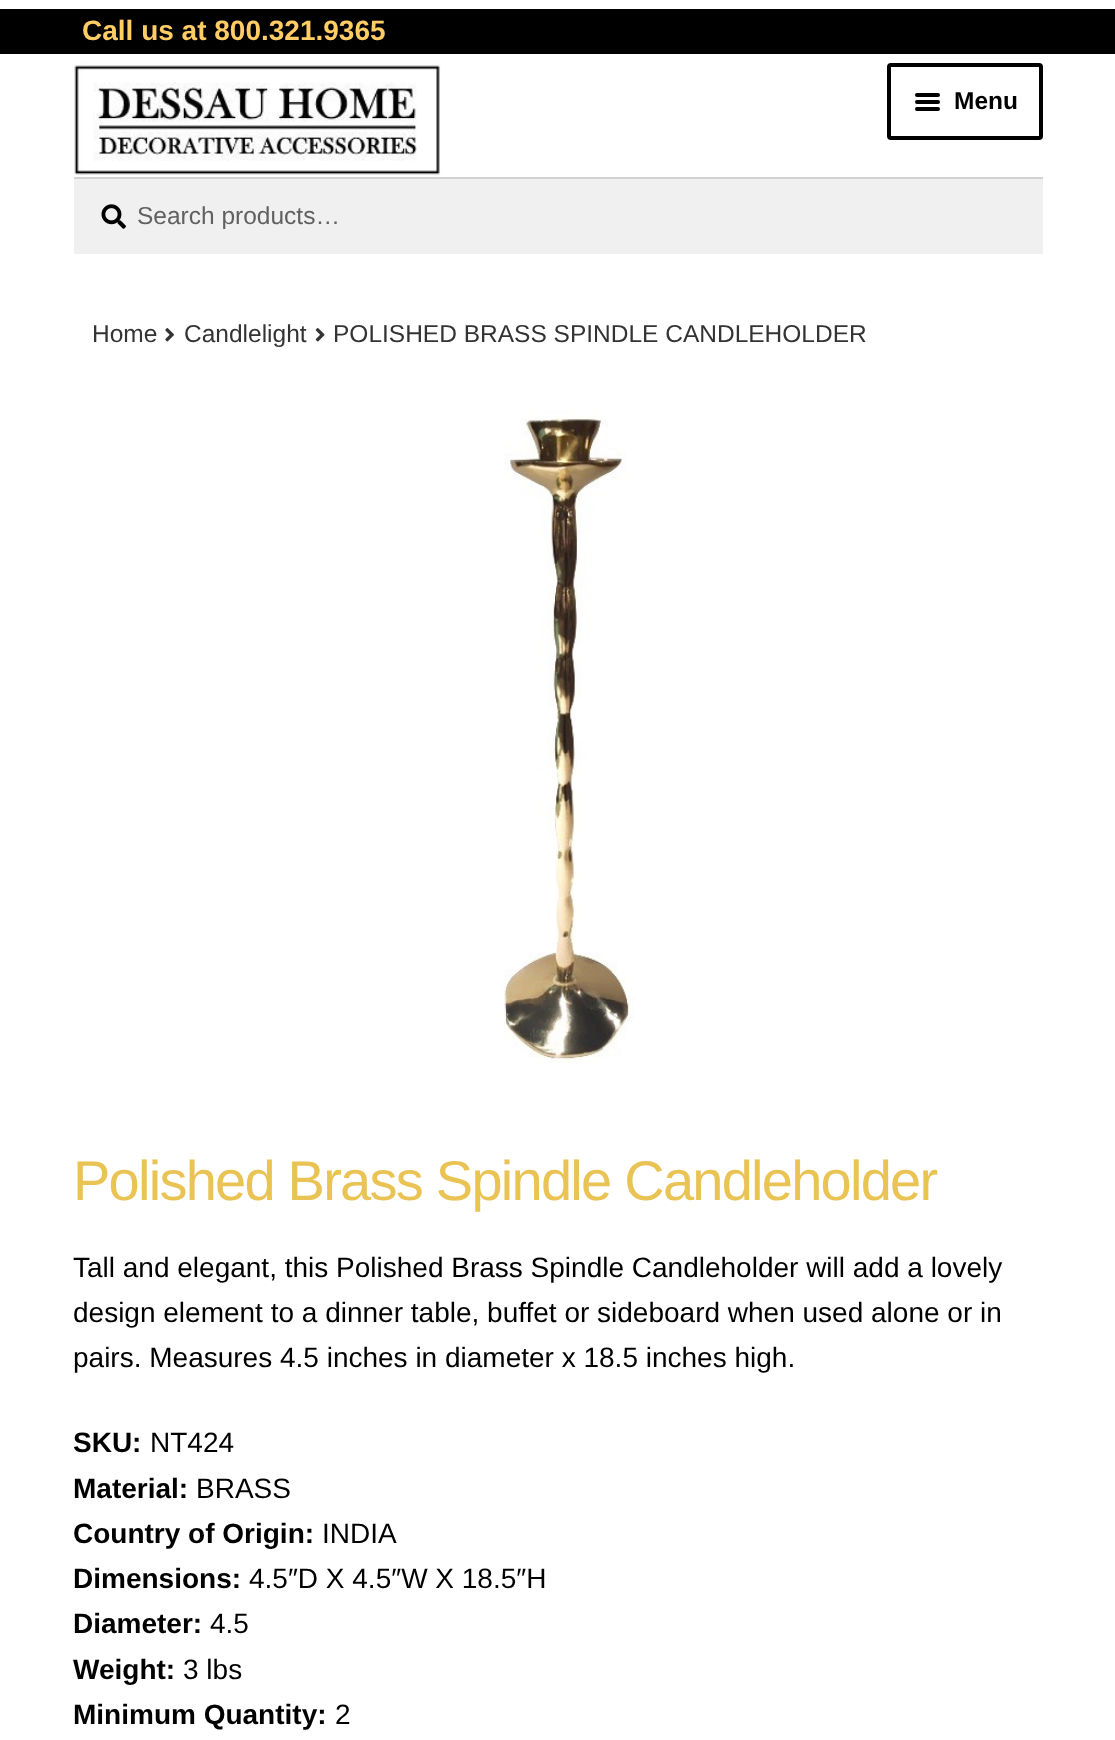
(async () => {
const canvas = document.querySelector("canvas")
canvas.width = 1115
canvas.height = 1740
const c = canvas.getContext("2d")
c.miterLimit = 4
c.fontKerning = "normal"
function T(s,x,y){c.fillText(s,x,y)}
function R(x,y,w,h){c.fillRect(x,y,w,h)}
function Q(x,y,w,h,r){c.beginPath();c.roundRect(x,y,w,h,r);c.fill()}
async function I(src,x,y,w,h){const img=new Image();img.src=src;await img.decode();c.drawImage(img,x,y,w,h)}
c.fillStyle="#fff"
R(0,0,1115,1740)
c.fillStyle="#000"
R(0,9,1115,45)
c.font="bold 28px Liberation Sans"
c.fillStyle="#fc6"
T("Call us at 800.321.9365",82,40)
await I("1.png",74,63,367,114)
c.beginPath()
c.roundRect(889,65,152,73,2)
c.strokeStyle="#000"
c.lineWidth=4
c.stroke()
c.fillStyle="#000"
Q(915,93,25,4,2)
Q(915,100,25,4,2)
c.font="bold 24.5px Liberation Sans"
T("Menu",954,109)
Q(915,107,25,4,2)
c.fillStyle="#f0f0f0"
R(74,179,969,75)
await I("2.png",101,204,25,25)
c.fillStyle="#d2d2d2"
R(74,177,969,2)
c.font="24.5px Liberation Sans"
c.fillStyle="#616161"
T("Search products…",137,224)
c.fillStyle="#333"
T("Home",92,342)
await I("3.png",165,328,9,14)
T("Candlelight",184,342)
await I("4.png",315,328,10,14)
T("POLISHED BRASS SPINDLE CANDLEHOLDER",333,342)
await I("5.png",503,410,132,653)
c.letterSpacing="-1.75px"
c.font="56px Liberation Sans"
c.fillStyle="#eac355"
T("Polished Brass Spindle Candleholder",73,1200)
c.letterSpacing="0px"
c.font="28px Liberation Sans"
c.fillStyle="#000"
T("Tall and elegant, this Polished Brass Spindle Candleholder will add a lovely",73,1277)
T("design element to a dinner table, buffet or sideboard when used alone or in",73,1322)
T("pairs. Measures 4.5 inches in diameter x 18.5 inches high.",73,1367)
c.font="bold 28px Liberation Sans"
T("SKU:",73,1452)
c.font="28px Liberation Sans"
T("NT424",150,1452)
c.font="bold 28px Liberation Sans"
T("Material:",73,1498)
c.font="28px Liberation Sans"
T("BRASS",196,1498)
c.font="bold 28px Liberation Sans"
T("Country of Origin:",73,1543)
c.font="28px Liberation Sans"
T("INDIA",322,1543)
c.font="bold 28px Liberation Sans"
T("Dimensions:",73,1588)
c.font="28px Liberation Sans"
T("4.5″D X 4.5″W X 18.5″H",249,1588)
c.font="bold 28px Liberation Sans"
T("Diameter:",73,1633)
c.font="28px Liberation Sans"
T("4.5",210,1633)
c.font="bold 28px Liberation Sans"
T("Weight:",73,1679)
c.font="28px Liberation Sans"
T("3 lbs",183,1679)
c.font="bold 28px Liberation Sans"
T("Minimum Quantity:",73,1724)
c.font="28px Liberation Sans"
T("2",335,1724)
})()
